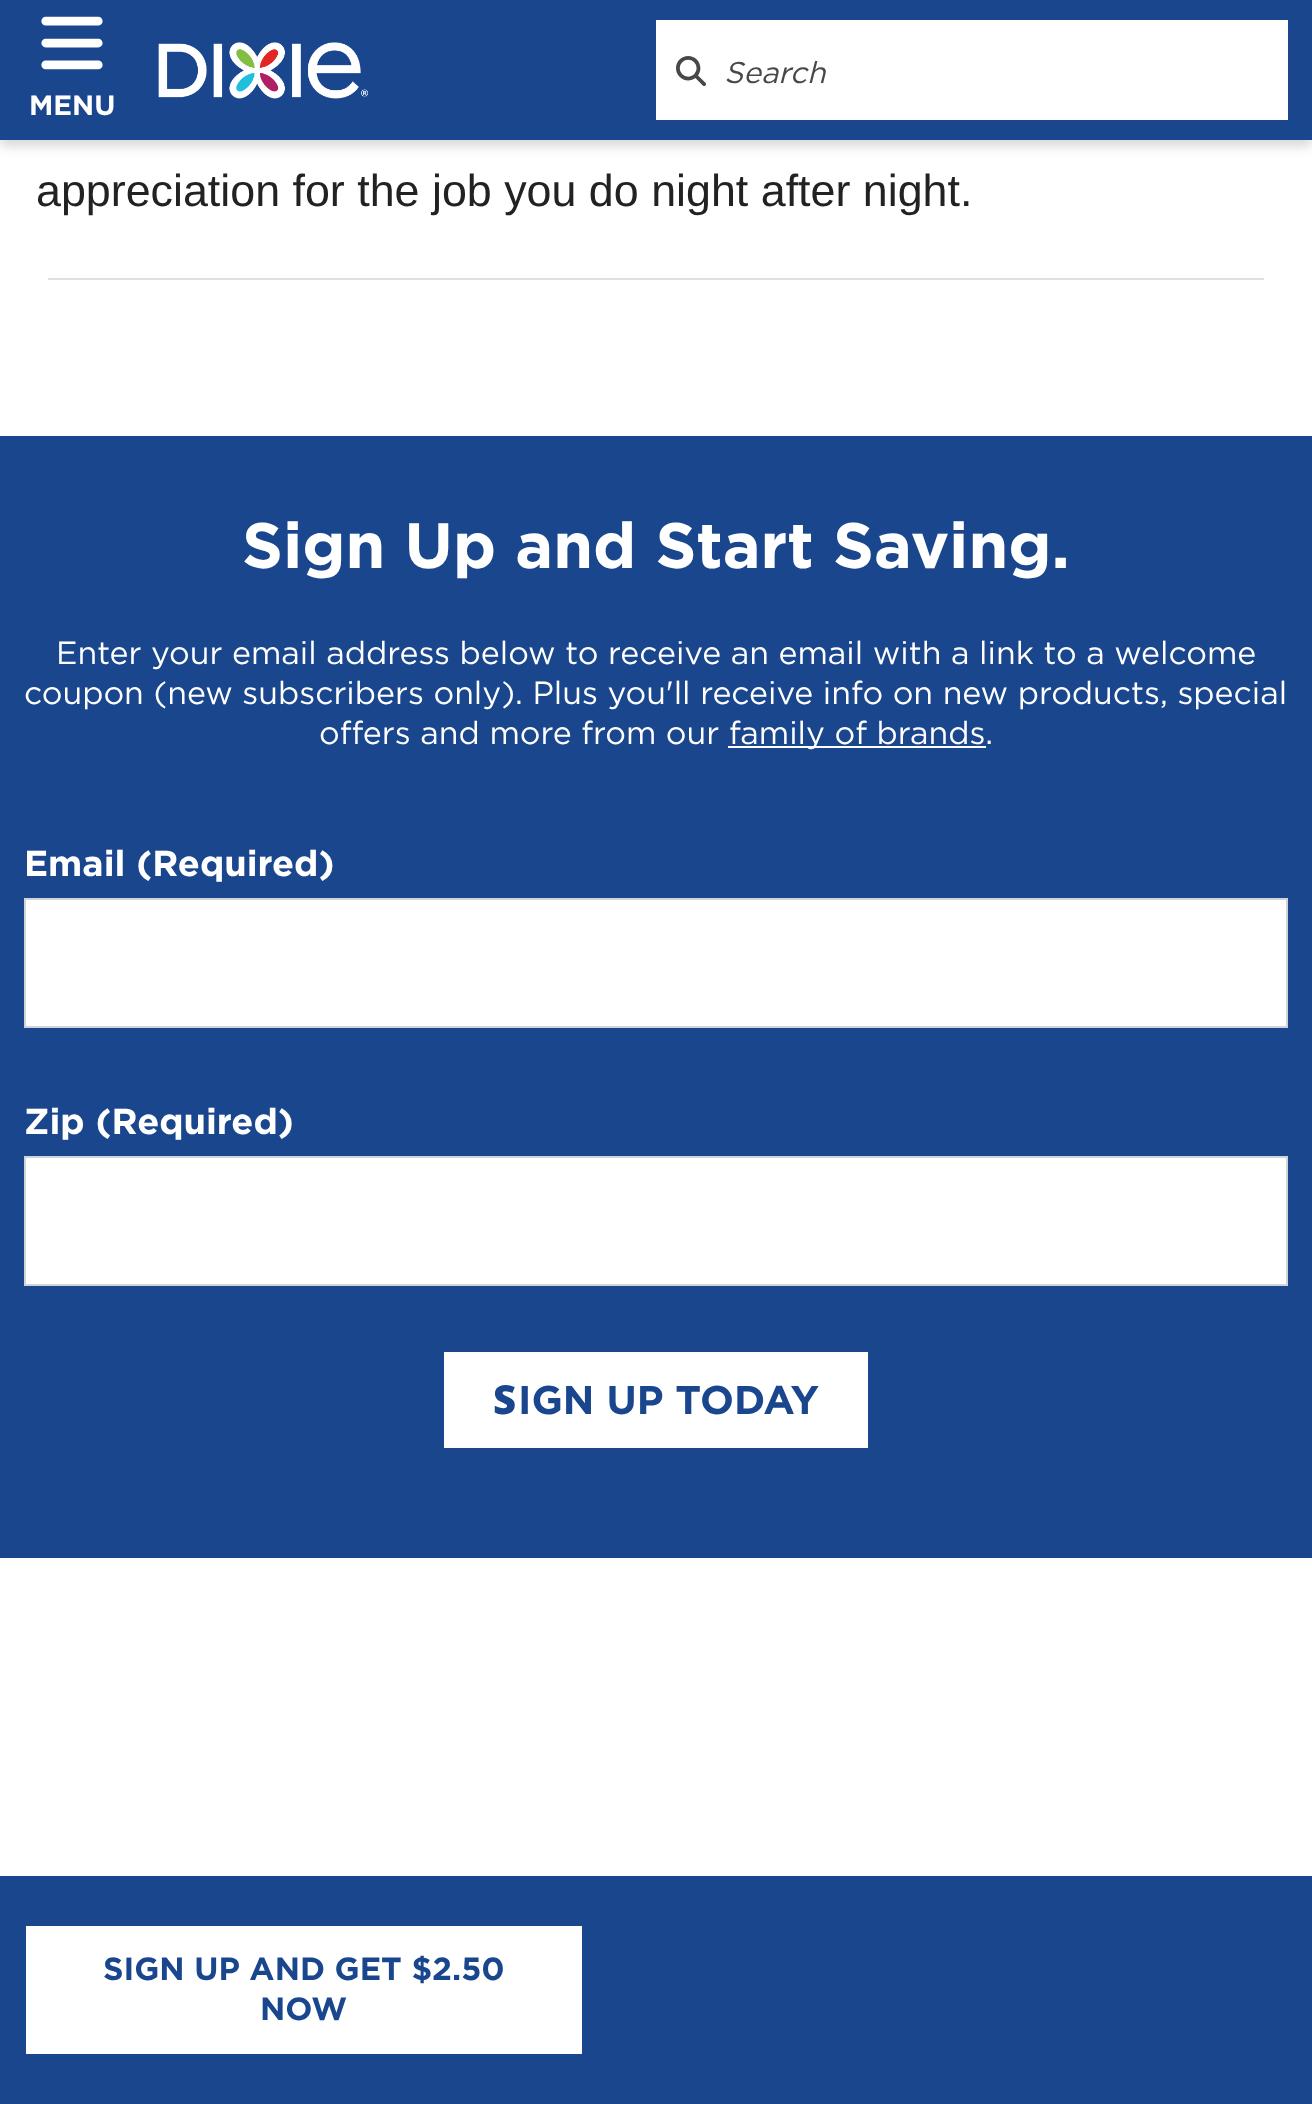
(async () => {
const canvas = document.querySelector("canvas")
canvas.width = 1312
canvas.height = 2104
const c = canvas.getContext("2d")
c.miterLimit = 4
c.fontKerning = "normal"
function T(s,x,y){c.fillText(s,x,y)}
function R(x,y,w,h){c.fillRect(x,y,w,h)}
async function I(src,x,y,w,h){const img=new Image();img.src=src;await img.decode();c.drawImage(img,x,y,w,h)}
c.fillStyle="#fff"
R(0,0,1312,2104)
c.fillStyle="#00000029"
c.filter="blur(6px)"
c.beginPath()
c.rect(0,6,1312,140)
c.fill()
c.filter="none"
c.fillStyle="#19468d"
R(0,0,1312,140)
c.fillStyle="#fff"
R(656,20,632,100)
await I("1.png",676,56,30,30)
c.font="italic 30px Gotham"
c.fillStyle="#484848"
T("Search",724,83)
await I("2.png",158,42,210,57)
await I("3.png",41,16,62,54)
c.font="bold 28px Gotham"
c.fillStyle="#fff"
T("MENU",29,115)
c.font="44.8px Liberation Sans"
c.fillStyle="#222"
T("appreciation for the job you do night after night.",36,206)
c.fillStyle="#e0e0e0"
R(48,278,1216,2)
c.fillStyle="#19468d"
R(0,436,1312,1122)
c.font="bold 64px Gotham"
c.fillStyle="#fff"
T("Sign Up and Start Saving.",242,568)
c.font="32px Gotham"
T("Enter your email address below to receive an email with a link to a welcome",56,664)
T("coupon (new subscribers only). Plus you'll receive info on new products, special",24,704)
T("offers and more from our",319,744)
R(728,746,258,2)
T("family of brands.",729,744)
c.font="bold 36px Gotham"
T("Email (Required)",24,876)
c.beginPath()
c.rect(25,899,1262,128)
c.fill()
c.strokeStyle="#ced4da"
c.lineWidth=2
c.stroke()
T("Zip (Required)",24,1134)
c.beginPath()
c.rect(25,1157,1262,128)
c.fill()
c.stroke()
R(444,1352,424,96)
c.font="900 40px Noto Sans"
c.fillStyle="#19468d"
T("S",493,1414)
c.font="bold 40px Gotham"
T("IGN UP TODAY",518,1414)
R(0,1876,1312,228)
c.fillStyle="#fff"
R(26,1926,556,128)
c.font="bold 32px Gotham"
c.fillStyle="#19468d"
T("SIGN UP AND GET $2.50",103,1980)
T("NOW",260,2020)
})()
